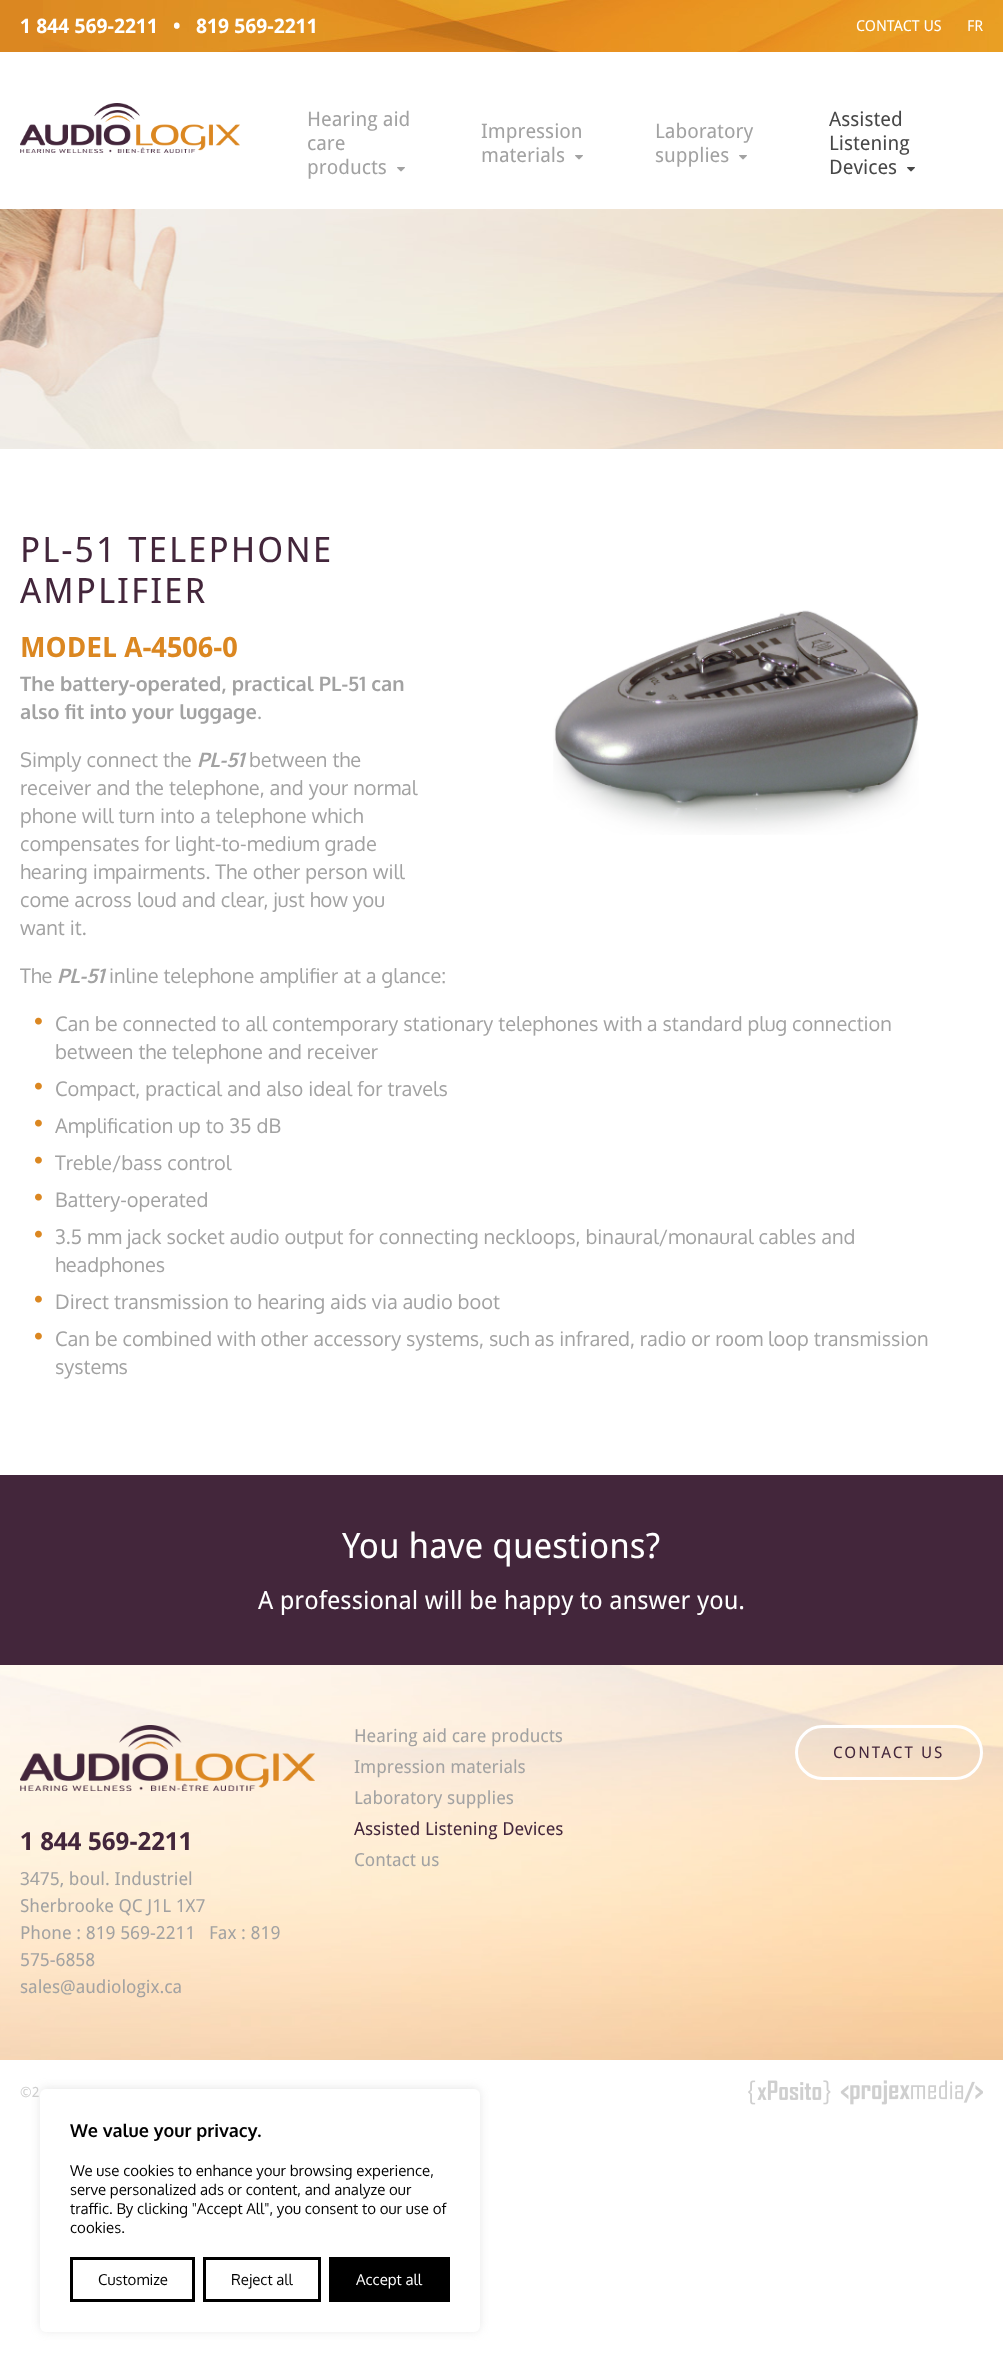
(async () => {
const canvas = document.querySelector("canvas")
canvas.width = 1003
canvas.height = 2372
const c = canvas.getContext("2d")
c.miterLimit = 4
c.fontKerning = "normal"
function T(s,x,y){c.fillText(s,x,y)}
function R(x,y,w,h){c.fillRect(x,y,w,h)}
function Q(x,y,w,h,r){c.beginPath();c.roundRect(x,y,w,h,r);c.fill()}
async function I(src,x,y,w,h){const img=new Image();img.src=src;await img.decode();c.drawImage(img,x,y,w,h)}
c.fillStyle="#fff"
R(0,0,1003,2372)
c.fillStyle="#db8721"
R(0,0,43,52)
await I("1.png",43,0,960,52)
c.font="bold 20px Droid Sans"
c.fillStyle="#fff"
T("1 844 569-2211",20,33)
T("•",173,33)
T("819 569-2211",196,33)
c.font="15px Droid Sans"
T("CONTACT US",856,31)
T("FR",967,31)
await I("2.png",20,103,220,50)
c.font="20px Droid Sans"
c.fillStyle="#a2a2a2"
T("Hearing aid",307,126)
T("care",307,150)
T("products",307,174)
await I("3.png",397,167,8,5)
T("Impression",481,138)
T("materials",481,162)
await I("3.png",575,155,8,5)
T("Laboratory",655,138)
T("supplies",655,162)
await I("3.png",739,155,8,5)
c.fillStyle="#484848"
T("Assisted",829,126)
T("Listening",829,150)
T("Devices",829,174)
await I("4.png",907,167,8,5)
await I("5.png",0,209,1003,240)
c.letterSpacing="2px"
c.font="35px Droid Sans"
c.fillStyle="#43263b"
T("PL-51 TELEPHONE",20,562)
T("AMPLIFIER",20,603)
c.letterSpacing="0px"
c.font="bold 28px Droid Sans"
c.fillStyle="#db8721"
T("MODEL A-4506-0",20,657)
c.font="bold 20px Oxygen"
c.fillStyle="#a2a2a2"
T("The battery-operated, practical PL-51 can",20,691)
T("also fit into your luggage",20,719)
c.font="20px Oxygen"
T(".",257,719)
T("Simply connect the",20,767)
c.font="italic bold 20px Oxygen"
T("PL-51",197,767)
c.font="20px Oxygen"
T("between the",249,767)
T("receiver and the telephone, and your normal",20,795)
T("phone will turn into a telephone which",20,823)
T("compensates for light-to-medium grade",20,851)
T("hearing impairments. The other person will",20,879)
T("come across loud and clear, just how you",20,907)
T("want it.",20,935)
T("The",20,983)
c.font="italic bold 20px Oxygen"
T("PL-51",57,983)
c.font="20px Oxygen"
T("inline telephone amplifier at a glance:",109,983)
await I("6.png",35,1017,7,8)
T("Can be connected to all contemporary stationary telephones with a standard plug connection",55,1031)
T("between the telephone and receiver",55,1059)
await I("6.png",35,1082,7,8)
T("Compact, practical and also ideal for travels",55,1096)
await I("6.png",35,1119,7,8)
T("Amplification up to 35 dB",55,1133)
await I("6.png",35,1156,7,8)
T("Treble/bass control",55,1170)
await I("6.png",35,1193,7,8)
T("Battery-operated",55,1207)
await I("6.png",35,1230,7,8)
T("3.5 mm jack socket audio output for connecting neckloops, binaural/monaural cables and",55,1244)
T("headphones",55,1272)
await I("6.png",35,1295,7,8)
T("Direct transmission to hearing aids via audio boot",55,1309)
await I("6.png",35,1332,7,8)
T("Can be combined with other accessory systems, such as infrared, radio or room loop transmission",55,1346)
T("systems",55,1374)
await I("7.png",553,610,366,225)
c.fillStyle="#43263b"
R(0,1475,1003,190)
c.font="35px Droid Sans"
c.fillStyle="#fff"
T("You have questions?",342,1558)
c.font="25px Droid Sans"
T("A professional will be happy to answer you.",258,1609)
await I("8.png",0,1665,1003,395)
c.font="18px Droid Sans"
c.fillStyle="#a2a2a2"
T("Hearing aid care products",354,1742)
T("Impression materials",354,1773)
T("Laboratory supplies",354,1804)
c.fillStyle="#43263b"
T("Assisted Listening Devices",354,1835)
c.fillStyle="#a2a2a2"
T("Contact us",354,1866)
c.beginPath()
c.roundRect(796.5,1726.5,185,52,26)
c.strokeStyle="#fff"
c.lineWidth=3
c.stroke()
c.letterSpacing="2px"
c.font="16px Droid Sans"
c.fillStyle="#43263b"
T("CONTACT US",833,1758)
await I("9.png",20,1725,295,66)
c.letterSpacing="0px"
c.font="bold 25px Droid Sans"
T("1 844 569-2211",20,1850)
c.font="18px Droid Sans"
c.fillStyle="#a2a2a2"
T("3475, boul. Industriel",20,1885)
T("Sherbrooke QC J1L 1X7",20,1912)
T("Phone : 819 569-2211",20,1939)
T("Fax : 819",209,1939)
T("575-6858",20,1966)
T("sales@audiologix.ca",20,1993)
c.font="14px Droid Sans"
c.fillStyle="#cfcfcf"
T("©2",20,2097)
await I("10.png",748,2080,83,25)
await I("11.png",840,2080,143,25)
c.fillStyle="#acabab4d"
c.filter="blur(5px)"
c.beginPath()
c.roundRect(40,2088,440,243,6)
c.fill()
c.filter="none"
c.fillStyle="#fff"
Q(40,2089,440,243,6)
c.font="bold 18px Oxygen"
c.fillStyle="#000"
T("We value your privacy.",70,2137)
c.font="15px Oxygen"
T("We use cookies to enhance your browsing experience,",70,2176)
T("serve personalized ads or content, and analyze our",70,2195)
T("traffic. By clicking \"Accept All\", you consent to our use of",70,2214)
T("cookies.",70,2233)
c.strokeStyle="#000"
c.strokeRect(71.5,2258.5,122,42)
T("Customize",98,2285)
c.strokeRect(204.5,2258.5,115,42)
T("Reject all",231,2285)
R(329,2257,121,45)
c.fillStyle="#fff"
T("Accept all",356,2285)
})()
